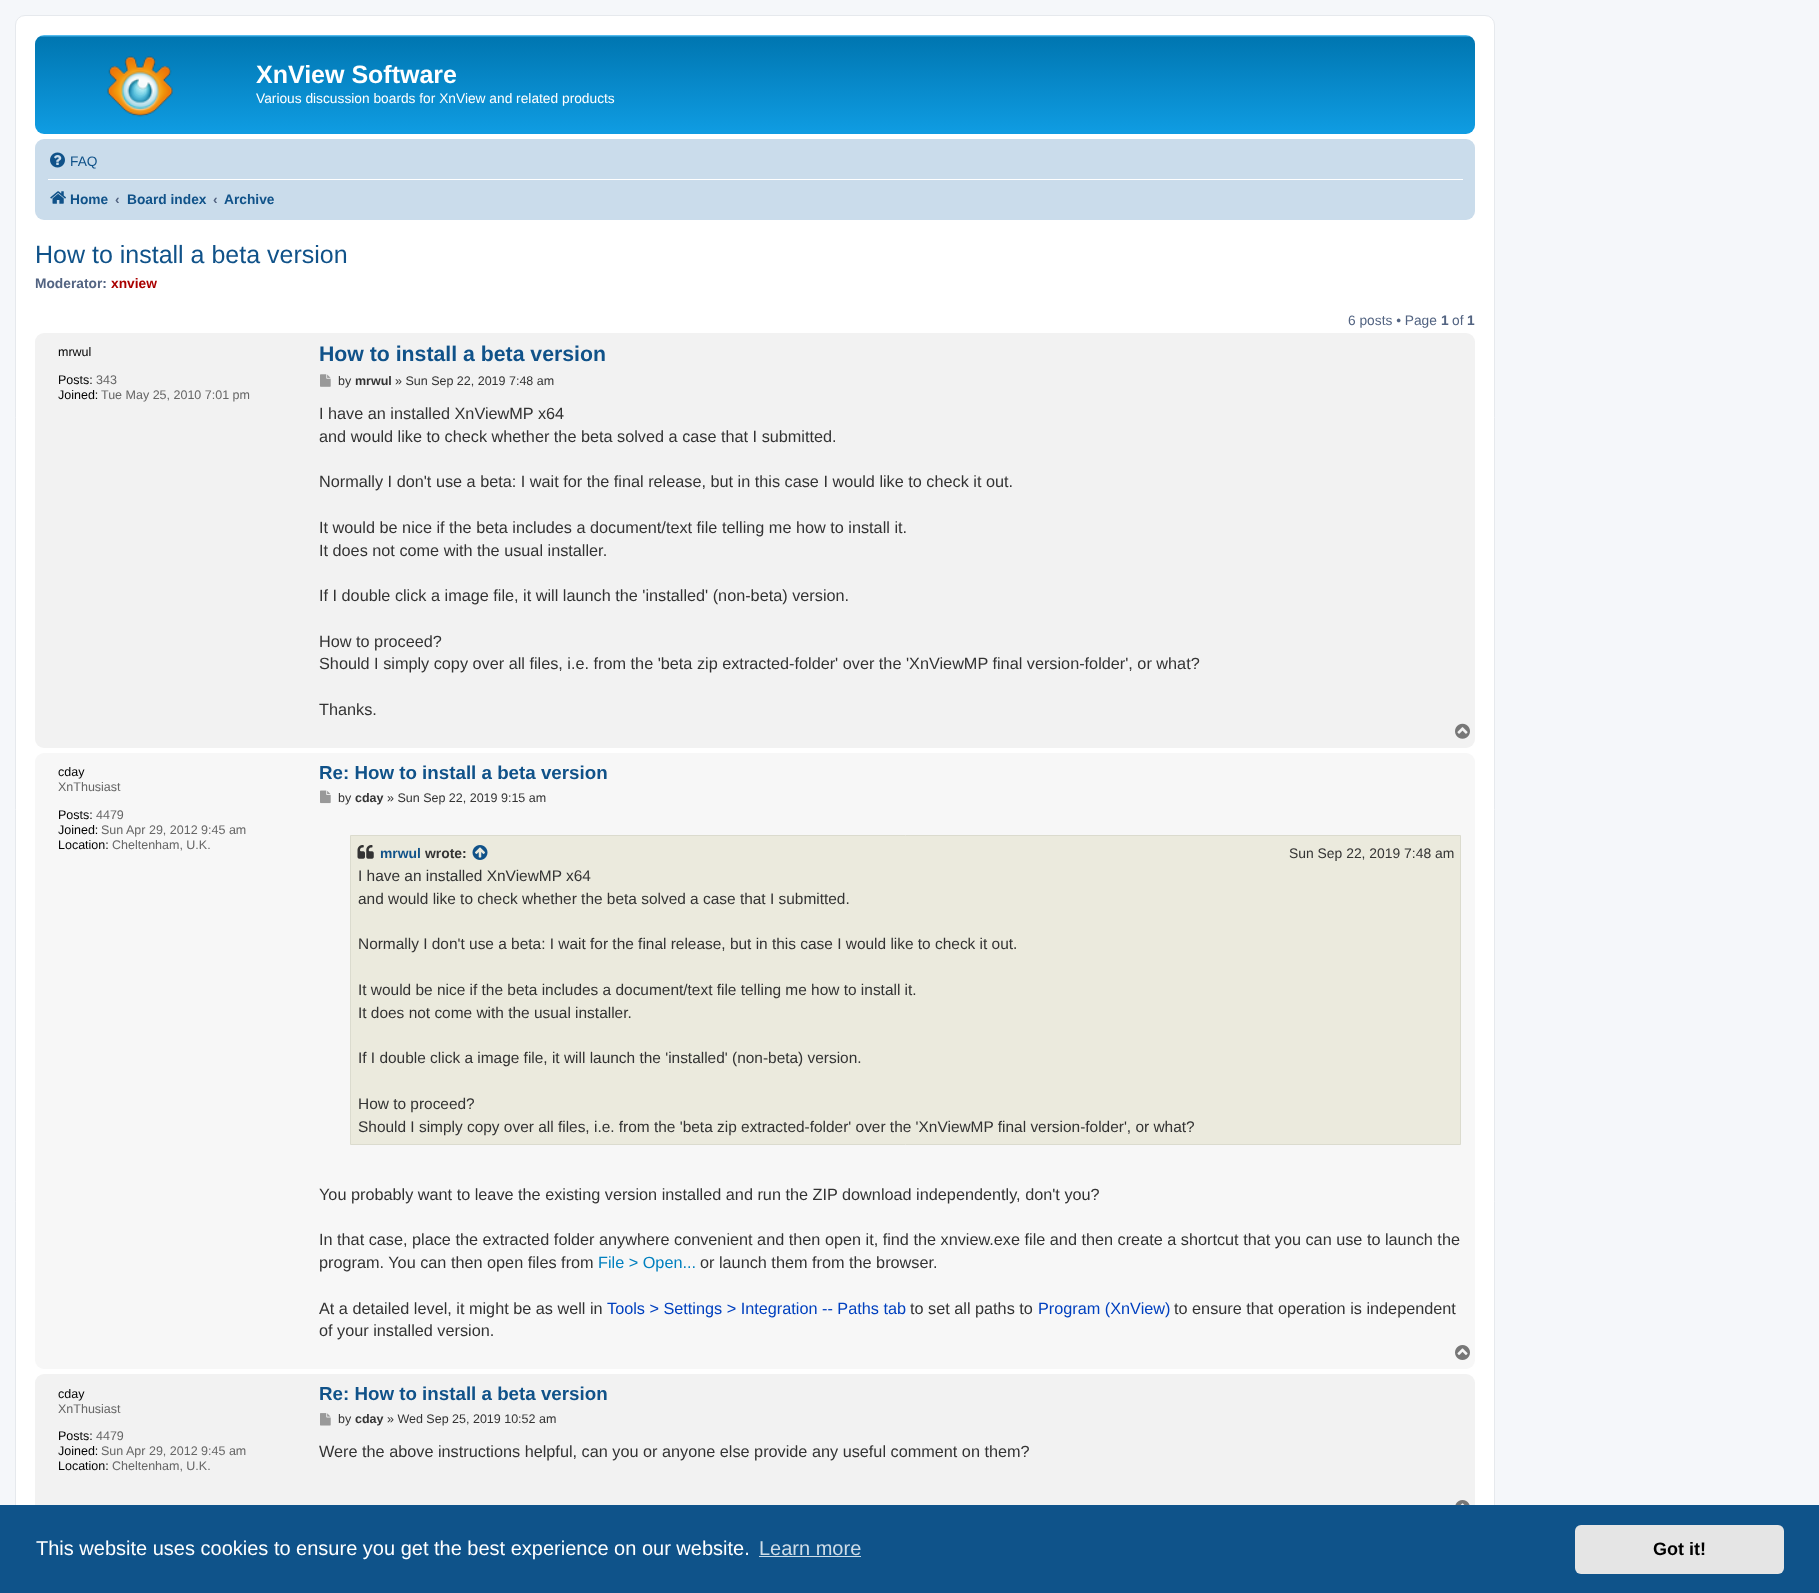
(async () => {
const canvas = document.querySelector("canvas")
canvas.width = 1819
canvas.height = 1593
const c = canvas.getContext("2d")
c.miterLimit = 4
c.fontKerning = "normal"
function T(s,x,y){c.fillText(s,x,y)}
function R(x,y,w,h){c.fillRect(x,y,w,h)}
function Q(x,y,w,h,r){c.beginPath();c.roundRect(x,y,w,h,r);c.fill()}
async function I(src,x,y,w,h){const img=new Image();img.src=src;await img.decode();c.drawImage(img,x,y,w,h)}
let gradient
c.fillStyle="#f5f7fa"
R(0,0,1819,1593)
c.fillStyle="#fff"
c.beginPath()
c.roundRect(15.5,15.5,1479,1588,9.5)
c.fill()
c.strokeStyle="#e6e9ed"
c.stroke()
gradient = c.createLinearGradient(755,35,755,150)
gradient.addColorStop(0,"#6aceff")
gradient.addColorStop(.02,"#0076b1")
gradient.addColorStop(1,"#12a3eb")
c.fillStyle = gradient
Q(35,35,1440,99,9)
await I("1.png",107,56,66,61)
c.font="bold 25px Liberation Sans"
c.fillStyle="#fff"
T("XnView Software",256,83)
c.font="13.75px Liberation Sans"
T("Various discussion boards for XnView and related products",256,103)
c.fillStyle="#cadceb"
Q(35,139,1440,81,9)
await I("2.png",50,152,15,16)
c.fillStyle="#105289"
T("FAQ",70,166)
c.fillStyle="#fff"
R(48,179,1415,1)
await I("3.png",50,191,16,13)
c.font="bold 13.75px Liberation Sans"
c.fillStyle="#105289"
T("Home",70,204)
c.fillStyle="#536482"
T("‹",115,204)
c.fillStyle="#105289"
T("Board index",127,204)
c.fillStyle="#536482"
T("‹",213,204)
c.fillStyle="#105289"
T("Archive",224,204)
c.font="25px Liberation Sans"
T("How to install a beta version",35,263)
c.font="bold 13.75px Liberation Sans"
c.fillStyle="#536482"
T("Moderator:",35,288)
c.fillStyle="#a00"
T("xnview",111,288)
c.font="13.75px Liberation Sans"
c.fillStyle="#536482"
T("6 posts • Page",1348,325)
c.font="bold 13.75px Liberation Sans"
T("1",1441,325)
c.font="13.75px Liberation Sans"
T("of",1452,325)
c.font="bold 13.75px Liberation Sans"
T("1",1467,325)
c.fillStyle="#f2f2f2"
Q(35,333,1440,415,9)
c.font="12.5px Liberation Sans"
c.fillStyle="#000"
T("mrwul",58,356)
T("Posts:",58,384)
c.fillStyle="#666"
T("343",96,384)
c.fillStyle="#000"
T("Joined:",58,399)
c.fillStyle="#666"
T("Tue May 25, 2010 7:01 pm",101,399)
c.font="bold 21.25px Liberation Sans"
c.fillStyle="#105289"
T("How to install a beta version",319,361)
await I("4.png",320,374,11,13)
c.font="12.5px Liberation Sans"
c.fillStyle="#333"
T("by",338,385)
c.font="bold 12.5px Liberation Sans"
T("mrwul",355,385)
c.font="12.5px Liberation Sans"
T("» Sun Sep 22, 2019 7:48 am",395,385)
c.font="16.25px Liberation Sans"
T("I have an installed XnViewMP x64",319,419)
T("and would like to check whether the beta solved a case that I submitted.",319,442)
T("Normally I don't use a beta: I wait for the final release, but in this case I would like to check it out.",319,487)
T("It would be nice if the beta includes a document/text file telling me how to install it.",319,533)
T("It does not come with the usual installer.",319,556)
T("If I double click a image file, it will launch the 'installed' (non-beta) version.",319,601)
T("How to proceed?",319,647)
T("Should I simply copy over all files, i.e. from the 'beta zip extracted-folder' over the 'XnViewMP final version-folder', or what?",319,669)
T("Thanks.",319,715)
await I("5.png",1455,723,15,16)
c.fillStyle="#f7f7f7"
Q(35,753,1440,616,9)
c.font="12.5px Liberation Sans"
c.fillStyle="#000"
T("cday",58,776)
c.fillStyle="#666"
T("XnThusiast",58,791)
c.fillStyle="#000"
T("Posts:",58,819)
c.fillStyle="#666"
T("4479",96,819)
c.fillStyle="#000"
T("Joined:",58,834)
c.fillStyle="#666"
T("Sun Apr 29, 2012 9:45 am",101,834)
c.fillStyle="#000"
T("Location:",58,849)
c.fillStyle="#666"
T("Cheltenham, U.K.",112,849)
c.font="bold 18.75px Liberation Sans"
c.fillStyle="#105289"
T("Re: How to install a beta version",319,779)
await I("6.png",320,790,11,14)
c.font="12.5px Liberation Sans"
c.fillStyle="#333"
T("by",338,802)
c.font="bold 12.5px Liberation Sans"
T("cday",355,802)
c.font="12.5px Liberation Sans"
T("» Sun Sep 22, 2019 9:15 am",387,802)
c.fillStyle="#ebeadd"
c.beginPath()
c.rect(350.5,835.5,1110,309)
c.fill()
c.strokeStyle="#dbdbce"
c.stroke()
await I("7.png",357,845,17,14)
c.font="bold 13.9px Liberation Sans"
c.fillStyle="#105289"
T("mrwul",380,858)
c.fillStyle="#333"
T("wrote:",425,858)
await I("8.png",472,845,16,15)
c.font="13.9px Liberation Sans"
T("Sun Sep 22, 2019 7:48 am",1289,858)
c.font="15.45px Liberation Sans"
T("I have an installed XnViewMP x64",358,881)
T("and would like to check whether the beta solved a case that I submitted.",358,904)
T("Normally I don't use a beta: I wait for the final release, but in this case I would like to check it out.",358,949)
T("It would be nice if the beta includes a document/text file telling me how to install it.",358,995)
T("It does not come with the usual installer.",358,1018)
T("If I double click a image file, it will launch the 'installed' (non-beta) version.",358,1063)
T("How to proceed?",358,1109)
T("Should I simply copy over all files, i.e. from the 'beta zip extracted-folder' over the 'XnViewMP final version-folder', or what?",358,1132)
c.font="16.25px Liberation Sans"
T("You probably want to leave the existing version installed and run the ZIP download independently, don't you?",319,1200)
T("In that case, place the extracted folder anywhere convenient and then open it, find the xnview.exe file and then create a shortcut that you can use to launch the",319,1245)
T("program. You can then open files from",319,1268)
c.fillStyle="#0080bf"
T("File > Open...",598,1268)
c.fillStyle="#333"
T("or launch them from the browser.",700,1268)
T("At a detailed level, it might be as well in",319,1314)
c.fillStyle="#0040bf"
T("Tools > Settings > Integration -- Paths tab",607,1314)
c.fillStyle="#333"
T("to set all paths to",910,1314)
c.fillStyle="#0040bf"
T("Program (XnView)",1038,1314)
c.fillStyle="#333"
T("to ensure that operation is independent",1174,1314)
T("of your installed version.",319,1336)
await I("9.png",1455,1345,15,15)
c.fillStyle="#f2f2f2"
Q(35,1374,1440,150,9)
c.font="12.5px Liberation Sans"
c.fillStyle="#000"
T("cday",58,1398)
c.fillStyle="#666"
T("XnThusiast",58,1413)
c.fillStyle="#000"
T("Posts:",58,1440)
c.fillStyle="#666"
T("4479",96,1440)
c.fillStyle="#000"
T("Joined:",58,1455)
c.fillStyle="#666"
T("Sun Apr 29, 2012 9:45 am",101,1455)
c.fillStyle="#000"
T("Location:",58,1470)
c.fillStyle="#666"
T("Cheltenham, U.K.",112,1470)
c.font="bold 18.75px Liberation Sans"
c.fillStyle="#105289"
T("Re: How to install a beta version",319,1400)
await I("10.png",320,1413,11,13)
c.font="12.5px Liberation Sans"
c.fillStyle="#333"
T("by",338,1423)
c.font="bold 12.5px Liberation Sans"
T("cday",355,1423)
c.font="12.5px Liberation Sans"
T("» Wed Sep 25, 2019 10:52 am",387,1423)
c.font="16.25px Liberation Sans"
T("Were the above instructions helpful, can you or anyone else provide any useful comment on them?",319,1457)
await I("11.png",1455,1500,15,5)
c.fillStyle="#0f538a"
R(0,1505,1819,88)
c.font="20px Liberation Sans"
c.fillStyle="#fff"
T("This website uses cookies to ensure you get the best experience on our website.",36,1555)
c.fillStyle="#cfdde8"
T("Learn more",759,1555)
R(759,1556,102,1)
c.fillStyle="#e5e5e5"
Q(1575,1525,209,49,6)
c.font="bold 18px Liberation Sans"
c.fillStyle="#000"
T("Got it!",1653,1555)
})()
